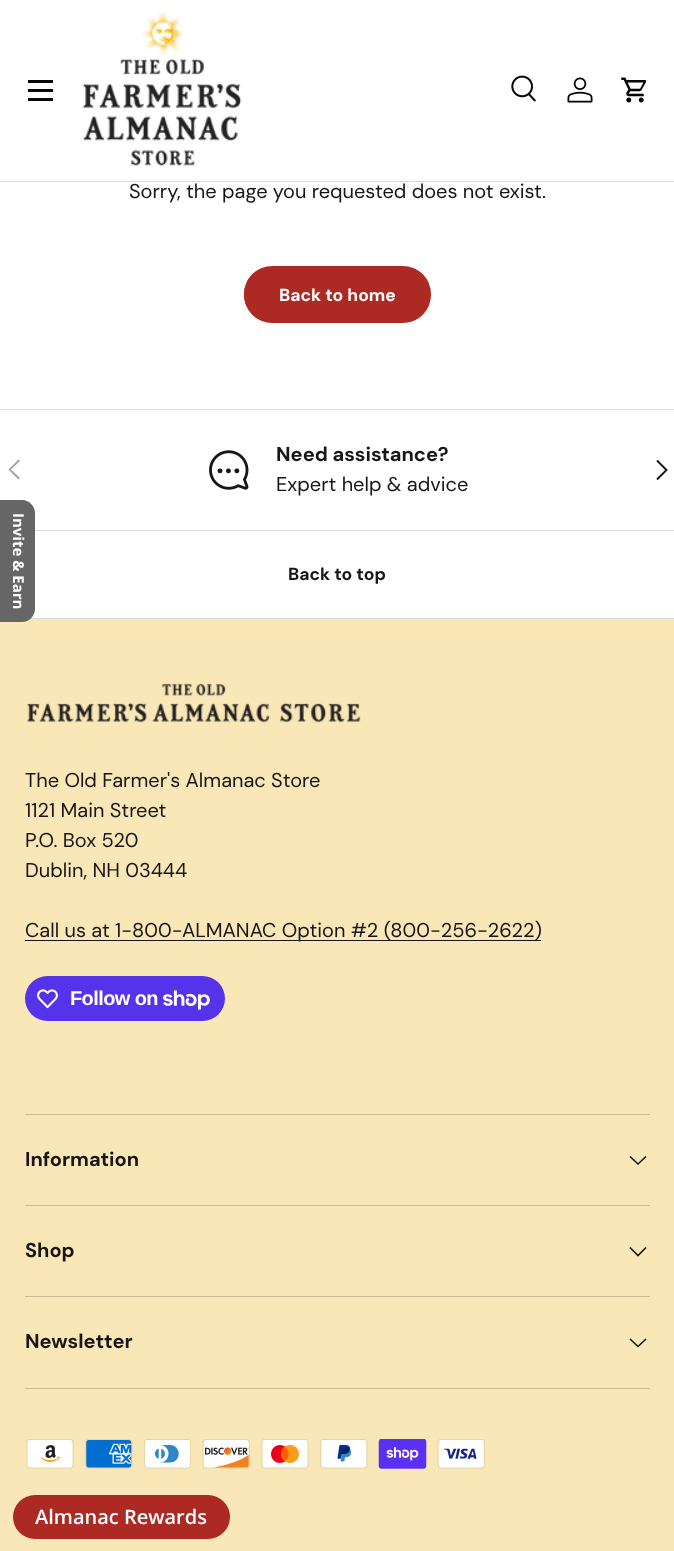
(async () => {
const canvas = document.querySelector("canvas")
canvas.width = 674
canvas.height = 1551
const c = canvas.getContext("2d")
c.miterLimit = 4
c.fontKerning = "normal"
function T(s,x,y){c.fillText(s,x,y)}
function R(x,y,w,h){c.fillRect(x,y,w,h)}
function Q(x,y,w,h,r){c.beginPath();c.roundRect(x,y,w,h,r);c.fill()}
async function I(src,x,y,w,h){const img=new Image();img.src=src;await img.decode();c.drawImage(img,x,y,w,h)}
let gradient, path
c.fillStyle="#fff"
R(0,0,674,1551)
c.fillStyle="#dadada"
R(0,181,674,1)
c.fillStyle="#070707"
R(28,80,25,3)
R(28,98,25,3)
R(28,89,25,3)
await I("1.png",82,12,160,154)
await I("2.png",511,75,25,27)
await I("3.png",567,77,26,26)
await I("4.png",621,77,26,26)
c.font="20px DM Sans"
c.fillStyle="#181616"
T("Sorry, the page you requested does not exist.",129,198)
c.save()
c.beginPath()
c.roundRect(244,266,187,57,28.5)
c.clip()
gradient = c.createLinearGradient(-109,229,419,360)
gradient.addColorStop(.6,"#be5450")
gradient.addColorStop(.6,"#ad2a24")
gradient.addColorStop(1,"#ad2a24")
c.fillStyle = gradient
R(244,269,185,51)
c.restore()
c.beginPath()
c.roundRect(245.5,267.5,184,54,27)
c.strokeStyle="#ad2a24"
c.lineWidth=3
c.stroke()
c.font="bold 17.5px DM Sans"
c.fillStyle="#fff"
T("Back to home",279,301)
c.fillStyle="#dcdcdc"
R(0,409,674,1)
await I("5.png",209,450,40,40)
c.font="bold 20px 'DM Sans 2'"
c.fillStyle="#181616"
T("Need assistance?",276,461)
c.font="20px DM Sans"
T("Expert help & advice",276,491)
c.fillStyle="#a3a2a2"
path = new Path2D("M8.5 469.5l10-10l1.5 1.5l-9 8.5l9 8.5l-1.5 1.5z")
c.fill(path)
path = new Path2D("M657 460.5l9.5 9.5l-9.5 9.5")
c.strokeStyle="#181616"
c.lineWidth=1.9
c.stroke(path)
c.fillStyle="#dcdcdc"
R(30,618,644,1)
c.fillStyle="#f9e7b7"
R(0,619,674,932)
c.fillStyle="#666"
path = new Path2D("M35 513v96c0 7-6 13-13 13h-22v-122h22c7 0 13 6 13 13z")
c.fill(path)
c.font="bold 15px Open Sans"
c.fillStyle="#fff"
c.save()
c.translate(13,513)
c.rotate(90 * Math.PI / 180)
c.fillText("Invite & Earn",0,0)
c.restore()
c.fillStyle="#dcdcdc"
R(35,530,639,1)
c.font="bold 17.5px DM Sans"
c.fillStyle="#181616"
T("Back to top",288,580)
await I("6.png",27,683,334,40)
c.font="20px DM Sans"
T("The Old Farmer's Almanac Store",25,787)
T("1121 Main Street",25,817)
T("P.O. Box 520",25,847)
T("Dublin, NH 03444",25,877)
R(25,940,516,1)
T("Call us at 1-800-ALMANAC Option #2 (800-256-2622)",25,937)
c.fillStyle="#5433eb"
Q(25,976,200,45,22.5)
await I("7.png",37,989,21,20)
c.letterSpacing="-0.6px"
c.font="bold 20px Liberation Sans"
c.fillStyle="#fff"
T("Follow on",70,1005)
await I("8.png",163,990,47,20)
c.fillStyle="#ccbd97"
R(25,1114,625,1)
R(25,1205,625,1)
c.letterSpacing="0px"
c.font="bold 20px 'DM Sans 2'"
c.fillStyle="#181616"
T("Information",25,1166)
path = new Path2D("M646 1156.5l-8 7.5l-8-7.5")
c.lineWidth=1.6
c.stroke(path)
c.fillStyle="#ccbd97"
R(25,1296,625,1)
c.fillStyle="#181616"
T("Shop",25,1257)
path = new Path2D("M646 1247.5l-8 8l-8-8")
c.stroke(path)
c.fillStyle="#ccbd97"
R(25,1388,625,1)
c.fillStyle="#181616"
T("Newsletter",25,1348)
path = new Path2D("M646 1339l-8 7.5l-8-7.5")
c.stroke(path)
await I("9.png",26,1439,48,30)
await I("10.png",85,1439,48,30)
await I("11.png",144,1439,47,30)
await I("12.png",202,1439,48,30)
await I("13.png",261,1439,48,30)
await I("14.png",320,1439,48,30)
await I("15.png",378,1439,49,30)
await I("16.png",437,1439,48,30)
c.fillStyle="#ad2a24"
Q(13,1495,217,44,22)
c.font="600 20px Open Sans"
c.fillStyle="#fff"
T("Almanac Rewards",35,1524)
})()
